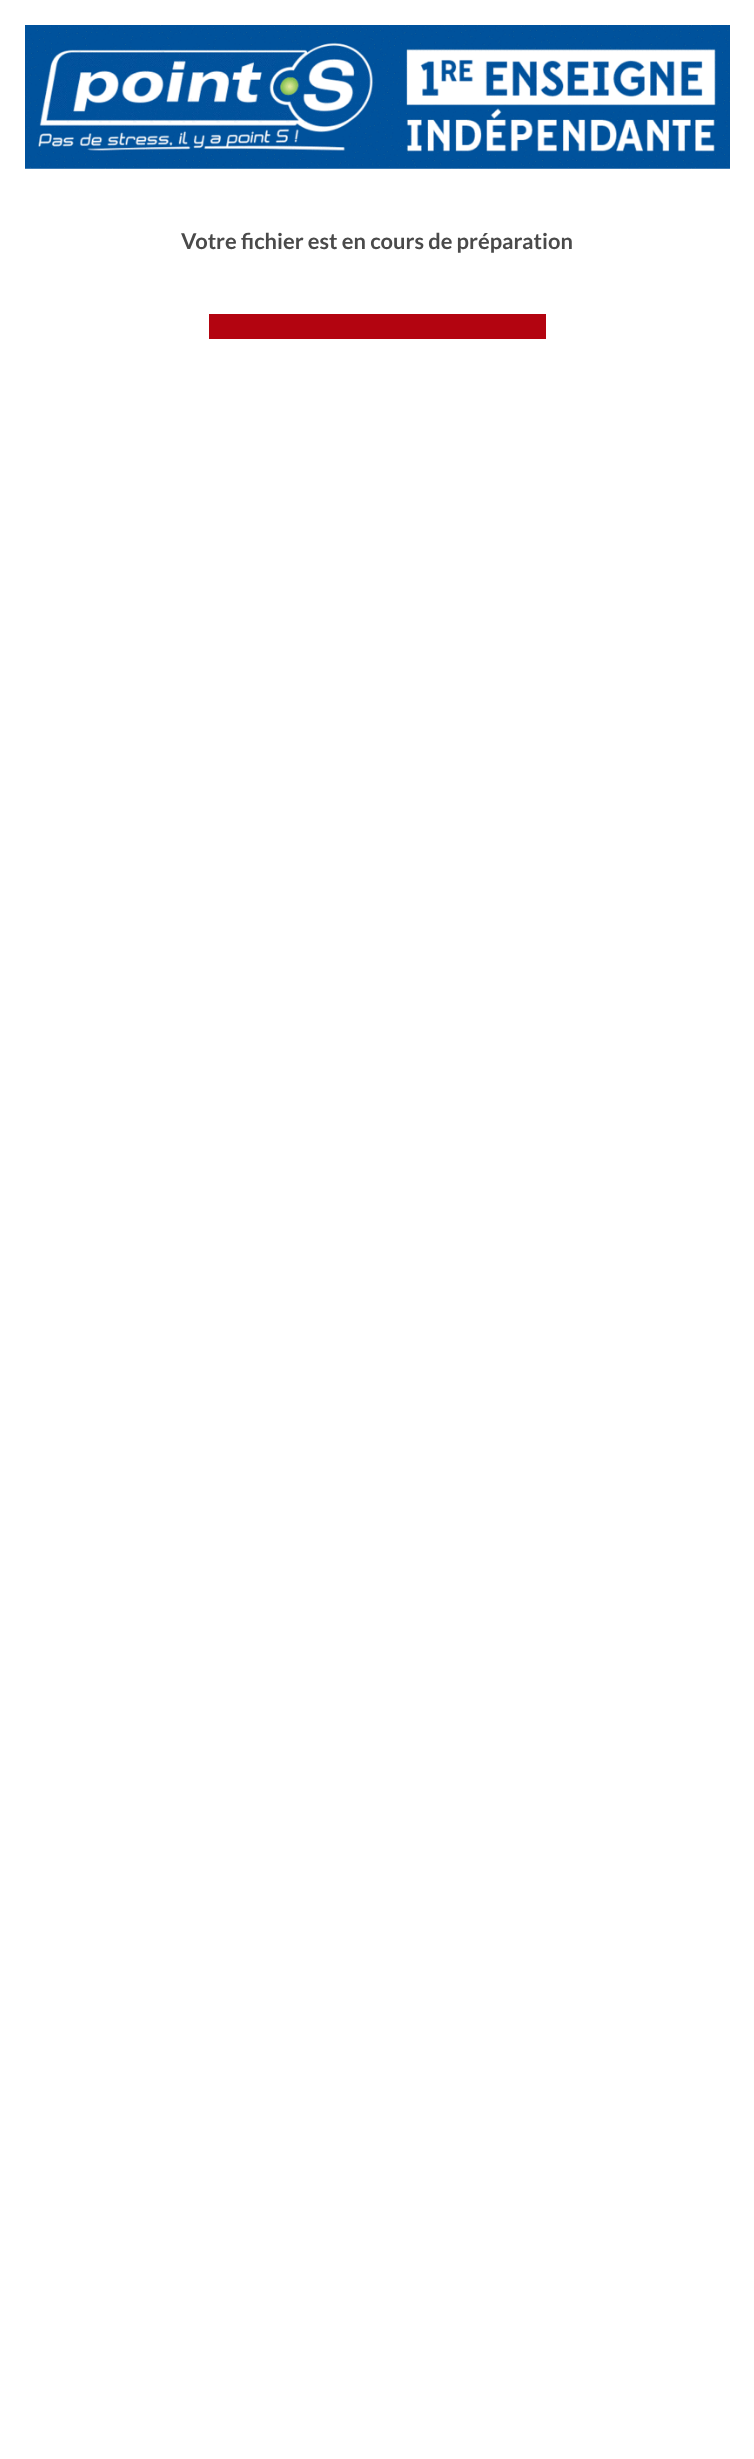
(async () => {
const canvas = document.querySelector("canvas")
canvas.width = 754
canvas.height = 2459
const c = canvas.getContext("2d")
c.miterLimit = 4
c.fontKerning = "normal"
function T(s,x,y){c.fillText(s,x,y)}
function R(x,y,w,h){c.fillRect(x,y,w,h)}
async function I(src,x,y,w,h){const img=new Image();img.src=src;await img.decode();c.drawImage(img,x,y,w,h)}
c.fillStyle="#fff"
R(0,0,754,2459)
await I("1.png",25,25,705,144)
c.font="bold 21.9px Lato"
c.fillStyle="#4a4a4a"
T("Votre fichier est en cours de préparation",181,249)
c.strokeStyle="#b30410"
c.strokeRect(209.5,314.5,336,24)
c.fillStyle="#b30410"
R(210,315,335,23)
})()
